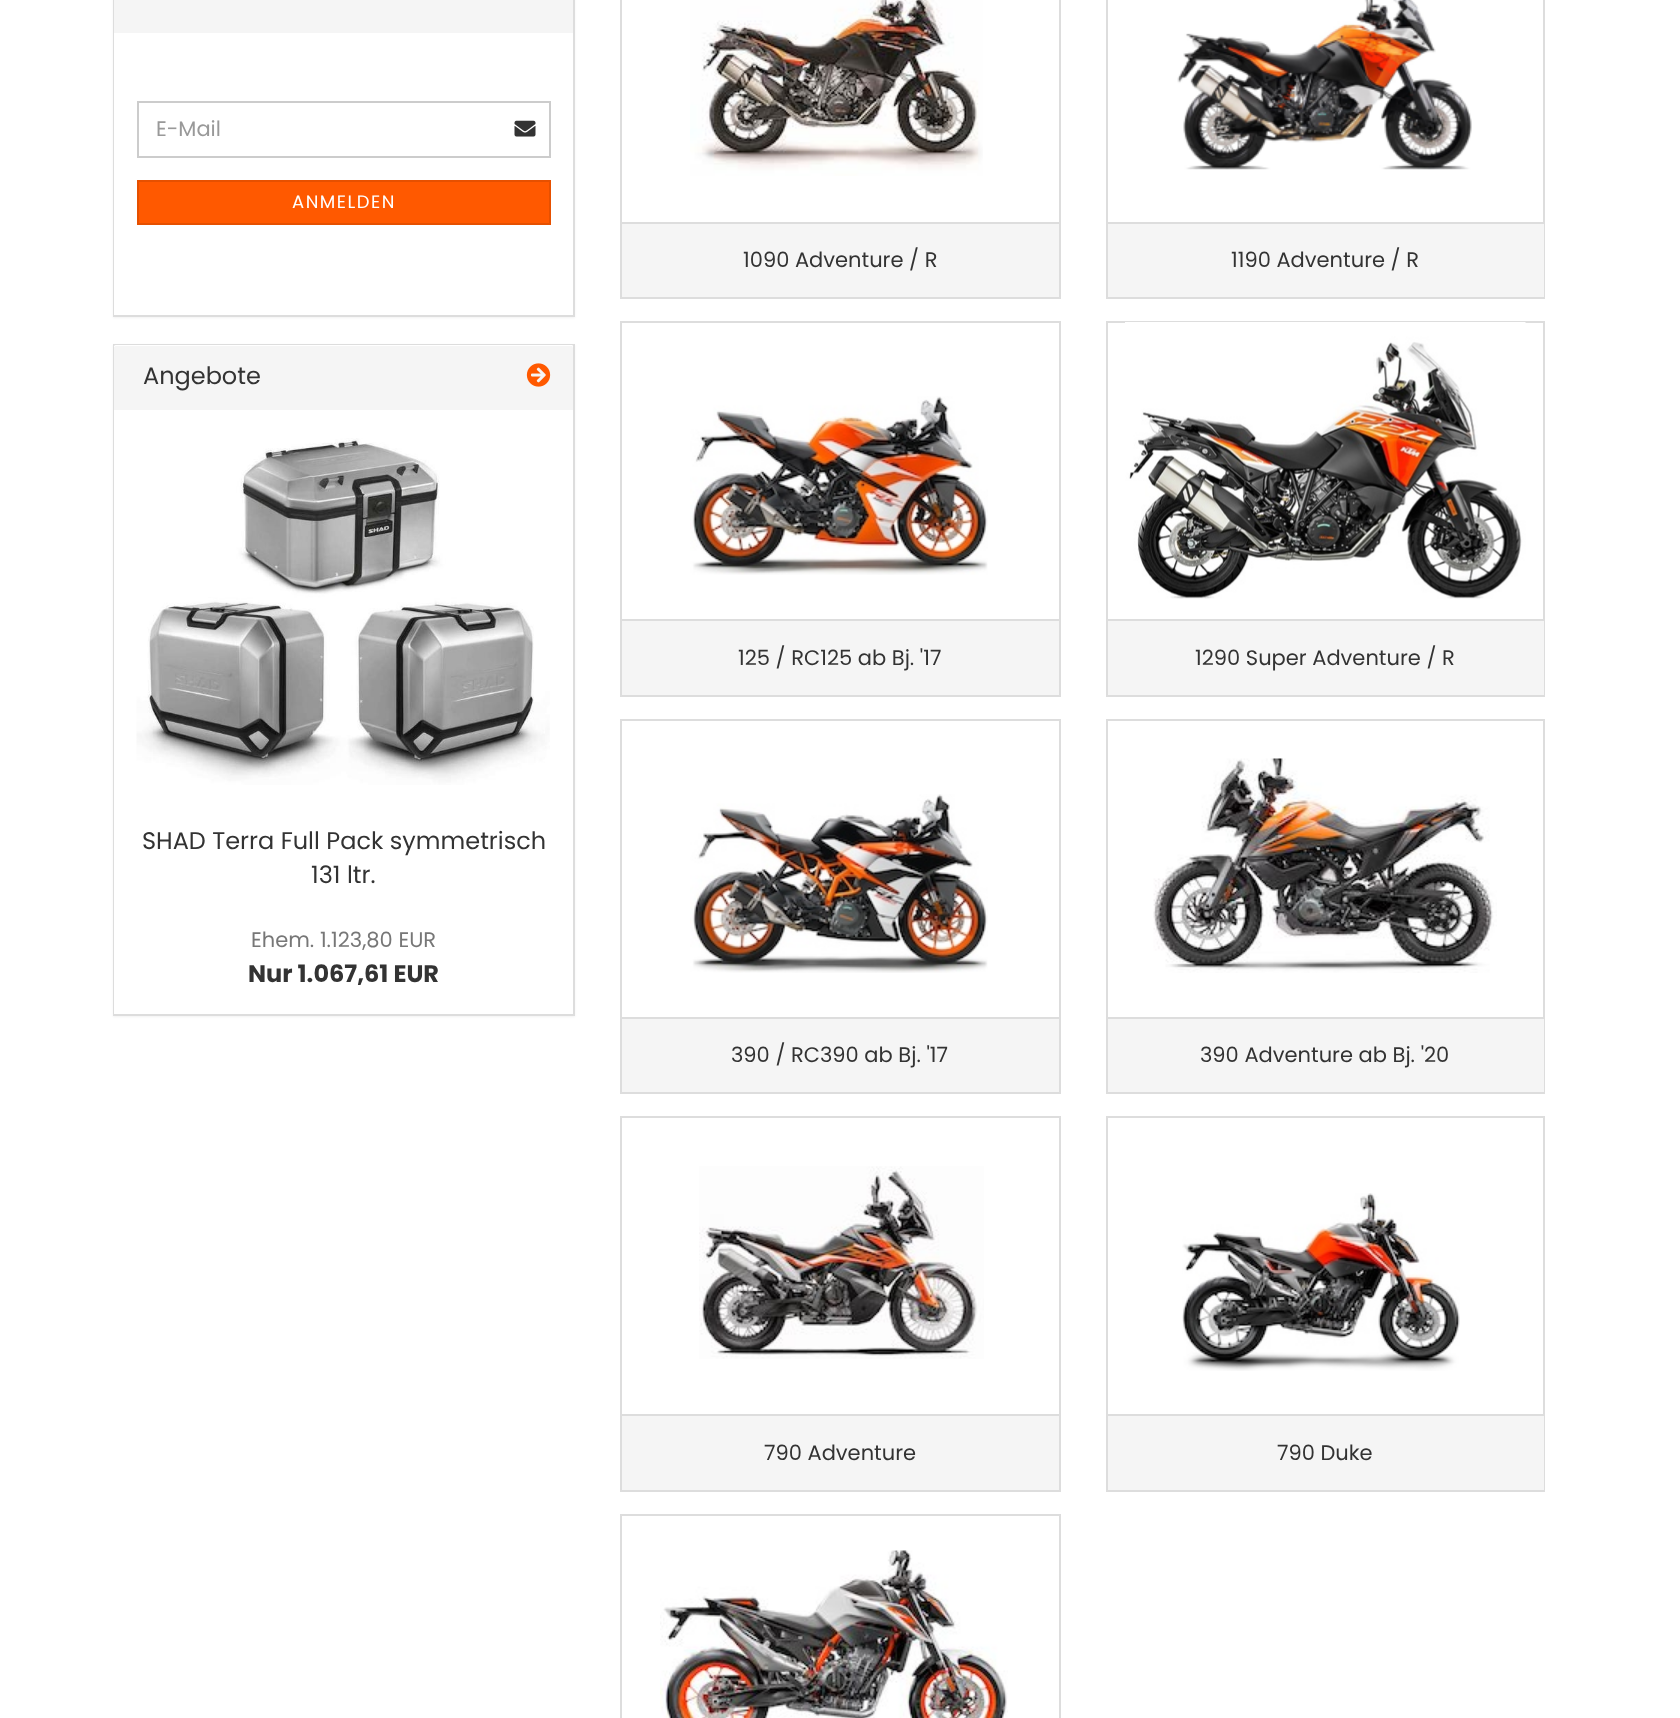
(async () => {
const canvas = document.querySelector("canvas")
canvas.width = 1680
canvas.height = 1718
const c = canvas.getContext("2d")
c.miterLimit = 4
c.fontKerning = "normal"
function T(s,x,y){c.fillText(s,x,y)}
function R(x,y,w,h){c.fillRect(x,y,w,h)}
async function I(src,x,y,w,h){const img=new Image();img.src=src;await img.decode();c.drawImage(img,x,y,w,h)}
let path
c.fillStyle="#fff"
R(0,0,1680,1718)
c.fillStyle="#0000000d"
c.filter="blur(1px)"
c.beginPath()
c.rect(113,-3,462,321)
c.fill()
c.filter="none"
c.strokeStyle="#ddd"
c.lineWidth=2
c.strokeRect(114,-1,460,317)
c.fillStyle="#f5f5f5"
R(114,0,459,33)
c.fillStyle="#fff"
R(114,33,459,282)
c.strokeStyle="#ccc"
c.strokeRect(138,102,412,55)
c.font="21px Poppins"
c.fillStyle="#999"
T("E-Mail",156,136)
await I("1.png",514,120,22,17)
c.fillStyle="#ff5900"
c.beginPath()
c.rect(138,181,412,43)
c.fill()
c.strokeStyle="#e65000"
c.stroke()
c.letterSpacing="1.5px"
c.font="18px Poppins"
c.fillStyle="#fff"
T("ANMELDEN",292,208)
c.fillStyle="#0000000d"
c.filter="blur(1px)"
c.beginPath()
c.rect(113,345,462,672)
c.fill()
c.filter="none"
c.strokeStyle="#ddd"
c.strokeRect(114,345,460,670)
c.fillStyle="#f5f5f5"
c.beginPath()
c.roundRect(114,345,459,65,[1.5,1.5,0,0])
c.fill()
c.fillStyle="#fff"
path = new Path2D("M116 346h456l1 2c0-1 0-3-1-3h-456l-2 1v2c0-1 1-2 2-2z")
c.fill(path)
c.letterSpacing="0px"
c.font="24px Poppins"
c.fillStyle="#333"
T("Angebote",143,384)
await I("2.png",526,363,25,24)
c.fillStyle="#fff"
R(114,410,459,604)
await I("3.png",136,438,414,347)
c.fillStyle="#333"
T("SHAD Terra Full Pack symmetrisch",142,849)
T("131 ltr.",311,883)
c.font="21px Poppins"
c.fillStyle="#777"
T("Ehem. 1.123,80 EUR",251,947)
c.font="bold 24px Poppins"
c.fillStyle="#333"
T("Nur 1.067,61 EUR",248,982)
c.strokeRect(621,-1,439,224)
await I("4.png",690,0,293,176)
c.fillStyle="#f5f5f5"
R(622,224,437,73)
c.fillStyle="#ddd"
R(1059,224,2,75)
R(620,297,441,2)
R(620,224,2,75)
c.font="21px Poppins"
c.fillStyle="#333"
T("1090 Adventure / R",743,267)
c.strokeRect(1107,-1,437,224)
await I("5.png",1177,0,295,170)
c.fillStyle="#f5f5f5"
R(1108,224,436,73)
c.fillStyle="#ddd"
R(1544,224,1,75)
R(1106,297,439,2)
R(1106,224,2,75)
c.fillStyle="#333"
T("1190 Adventure / R",1231,267)
c.strokeRect(621,322,439,298)
await I("6.png",690,396,298,179)
c.fillStyle="#f5f5f5"
R(622,621,437,74)
c.fillStyle="#ddd"
R(1059,621,2,75)
R(620,695,441,2)
R(620,621,2,75)
c.fillStyle="#333"
T("125 / RC125 ab Bj. '17",738,665)
c.strokeRect(1107,322,437,298)
await I("7.png",1125,322,401,277)
c.fillStyle="#f5f5f5"
R(1108,621,436,74)
c.fillStyle="#ddd"
R(1544,621,1,75)
R(1106,695,439,2)
R(1106,621,2,75)
c.fillStyle="#333"
T("1290 Super Adventure / R",1195,665)
c.strokeRect(621,720,439,298)
await I("8.png",690,794,298,179)
c.fillStyle="#f5f5f5"
R(622,1019,437,73)
c.fillStyle="#ddd"
R(1059,1019,2,75)
R(620,1092,441,2)
R(620,1019,2,75)
c.fillStyle="#333"
T("390 / RC390 ab Bj. '17",731,1062)
c.strokeRect(1107,720,437,298)
await I("9.png",1153,758,344,215)
c.fillStyle="#f5f5f5"
R(1108,1019,436,73)
c.fillStyle="#ddd"
R(1544,1019,1,75)
R(1106,1092,439,2)
R(1106,1019,2,75)
c.fillStyle="#333"
T("390 Adventure ab Bj. '20",1200,1062)
c.strokeRect(621,1117,439,298)
await I("10.png",699,1166,285,193)
c.fillStyle="#f5f5f5"
R(622,1416,437,74)
c.fillStyle="#ddd"
R(1059,1416,2,75)
R(620,1490,441,2)
R(620,1416,2,75)
c.fillStyle="#333"
T("790 Adventure",764,1460)
c.strokeRect(1107,1117,437,298)
await I("11.png",1182,1193,278,178)
c.fillStyle="#f5f5f5"
R(1108,1416,436,74)
c.fillStyle="#ddd"
R(1544,1416,1,75)
R(1106,1490,439,2)
R(1106,1416,2,75)
c.fillStyle="#333"
T("790 Duke",1277,1460)
c.strokeRect(621,1515,439,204)
await I("12.png",660,1550,348,168)
})()
